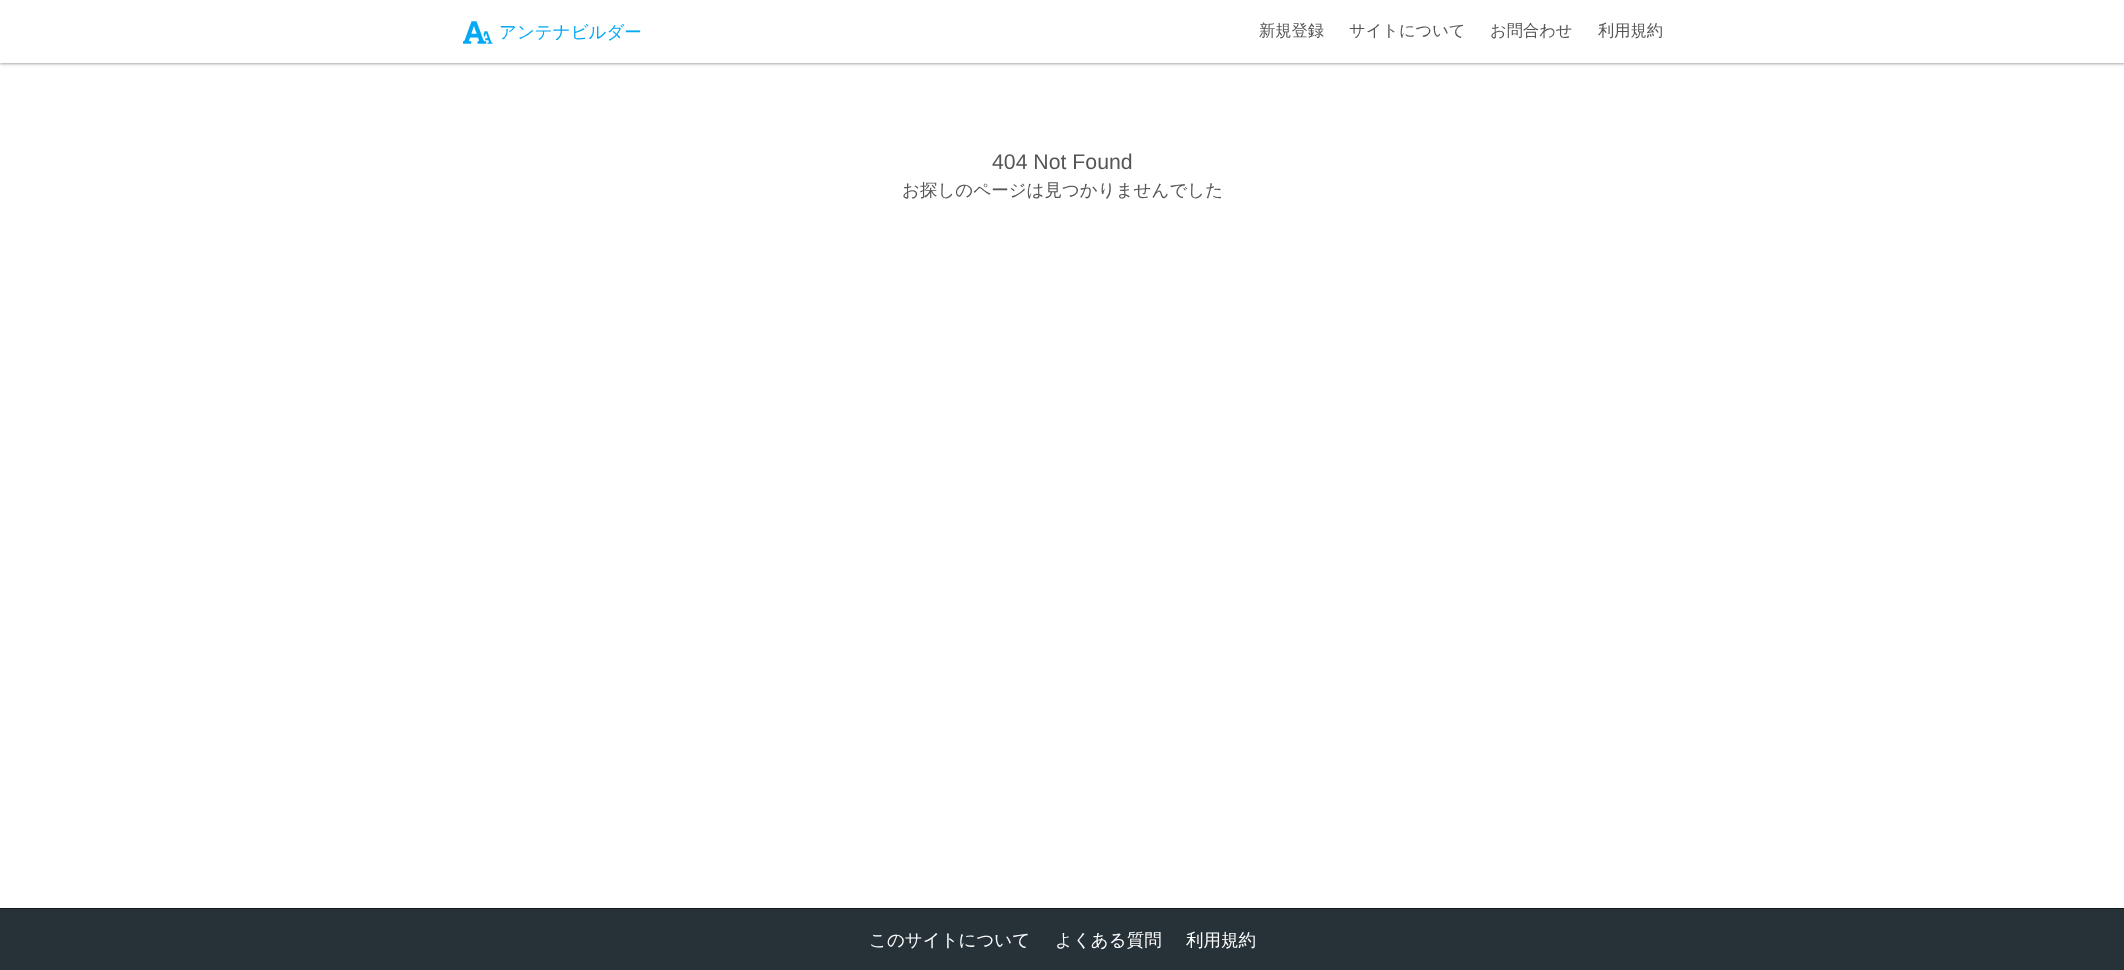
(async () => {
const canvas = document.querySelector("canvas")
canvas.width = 2124
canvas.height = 970
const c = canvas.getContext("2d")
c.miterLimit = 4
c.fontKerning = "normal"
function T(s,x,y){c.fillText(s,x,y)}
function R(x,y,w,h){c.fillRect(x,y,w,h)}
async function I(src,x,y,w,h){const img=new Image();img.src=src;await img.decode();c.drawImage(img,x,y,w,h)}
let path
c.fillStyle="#fff"
R(0,0,2124,970)
c.save()
path = new Path2D("M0 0h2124v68h-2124zm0 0h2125v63h-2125z")
c.clip(path,"evenodd")
c.fillStyle="#0000003d"
c.filter="blur(1px)"
c.beginPath()
c.rect(0,1,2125,63)
c.fill()
c.filter="none"
c.restore()
c.save()
path = new Path2D("M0 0h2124v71h-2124zm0 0h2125v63h-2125z")
c.clip(path,"evenodd")
c.fillStyle="#0000001f"
c.filter="blur(2px)"
c.beginPath()
c.rect(0,1,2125,63)
c.fill()
c.filter="none"
c.restore()
c.fillStyle="#ffffffe6"
R(0,62,2124,1)
await I("1.png",463,21,30,23)
c.font="500 17.5px WenQuanYi Zen Hei"
c.fillStyle="#03a9f4"
T("アンテナビルダー",499,38)
c.font="500 16.25px WenQuanYi Zen Hei"
c.fillStyle="#555"
T("新規登録",1259,36)
T("サイトについて",1349,36)
T("お問合わせ",1490,36)
T("利用規約",1598,36)
c.font="21.25px Liberation Sans"
T("404 Not Found",992,169)
c.font="500 17.5px WenQuanYi Zen Hei"
T("お探しのページは見つかりませんでした",902,196)
c.fillStyle="#263238"
R(0,909,2124,61)
c.fillStyle="#13191c"
R(0,908,2124,1)
c.fillStyle="#fff"
T("このサイトについて",869,946)
T("よくある質問",1055,946)
T("利用規約",1186,946)
})()
